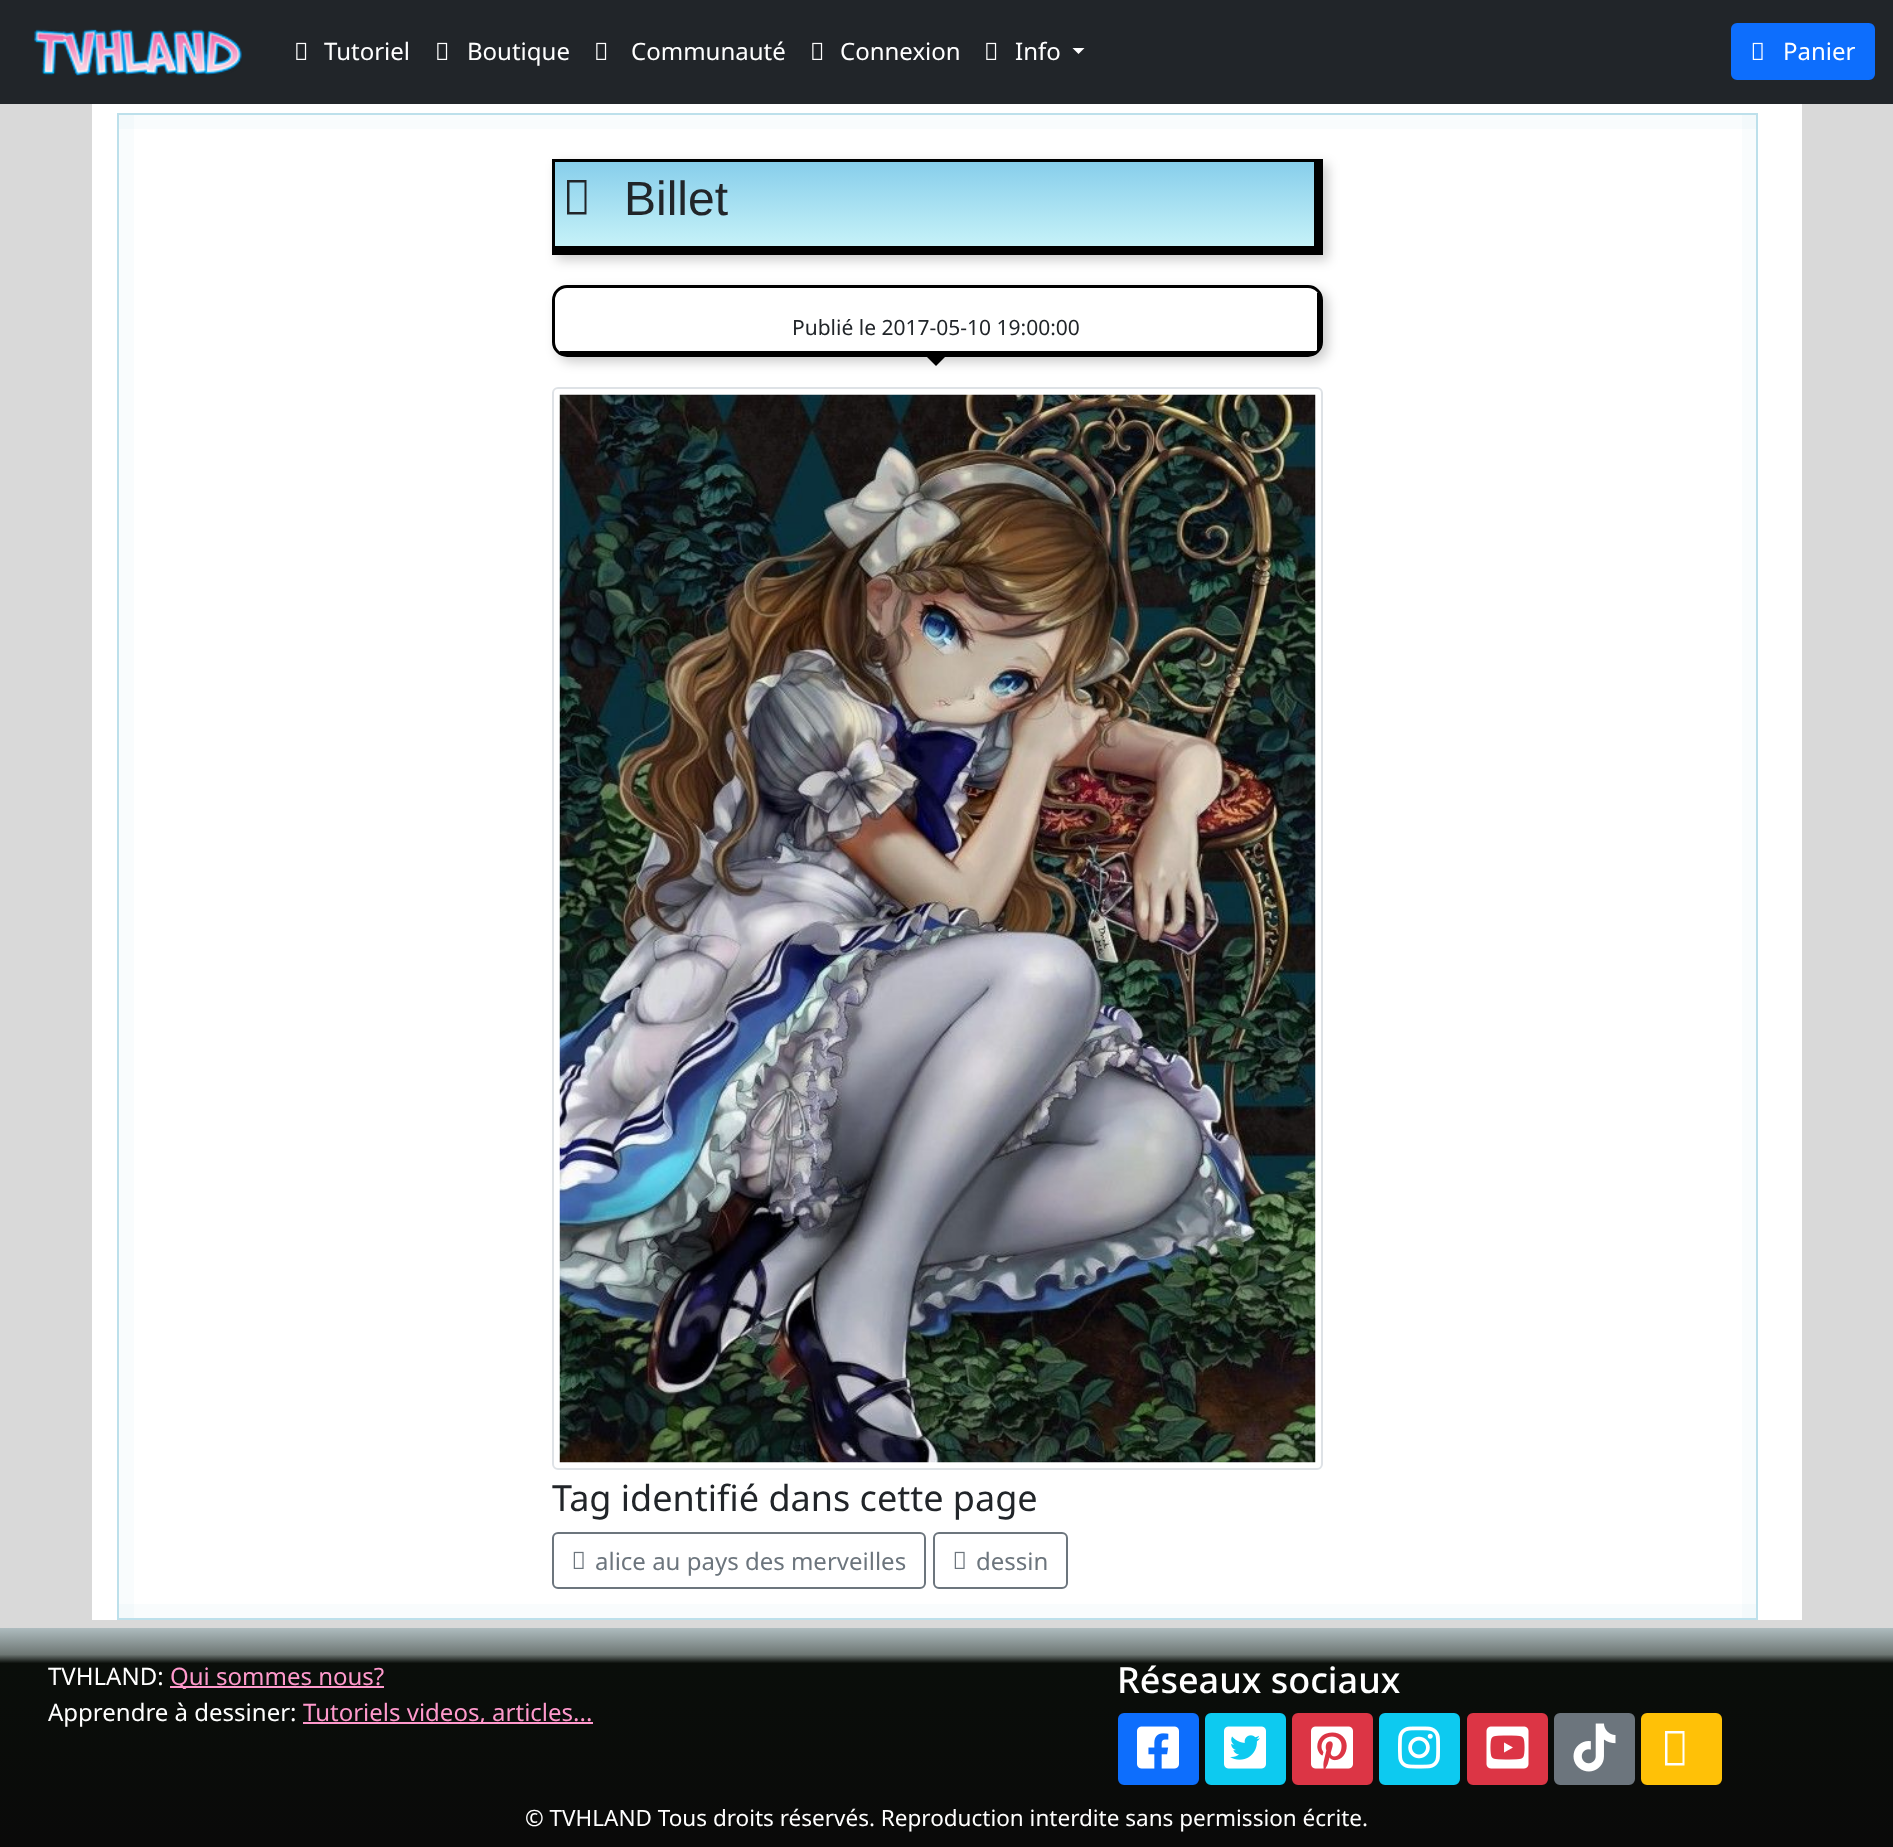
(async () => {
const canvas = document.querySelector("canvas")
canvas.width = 1893
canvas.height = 1847
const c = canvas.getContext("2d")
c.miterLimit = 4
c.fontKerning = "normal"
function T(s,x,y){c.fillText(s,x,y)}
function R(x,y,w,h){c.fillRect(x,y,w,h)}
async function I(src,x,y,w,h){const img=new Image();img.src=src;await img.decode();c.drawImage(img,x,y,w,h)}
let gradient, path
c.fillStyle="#d9d9d9"
R(0,0,1893,1847)
c.fillStyle="#212529"
R(0,0,1893,104)
await I("1.png",34,29,208,48)
await I("2.png",296,42,11,18)
c.font="24px Noto Sans"
c.fillStyle="#fff"
T("Tutoriel",324,60)
await I("2.png",437,42,11,18)
T("Boutique",467,60)
await I("2.png",596,42,11,18)
T("Communauté",631,60)
await I("2.png",812,42,11,18)
T("Connexion",840,60)
await I("2.png",986,42,11,18)
T("Info",1015,60)
path = new Path2D("M1072.5 48h12l-6 6z")
c.fill(path)
c.fillStyle="#0d6efd"
c.beginPath()
c.roundRect(1732,24,142,55,5)
c.fill()
c.strokeStyle="#0d6efd"
c.lineWidth=2
c.stroke()
await I("3.png",1752,42,11,18)
c.fillStyle="#fff"
T("Panier",1783,60)
R(92,104,1710,1516)
c.strokeStyle="#bde0eb"
c.strokeRect(118,114,1639,1505)
c.fillStyle="#add8e614"
R(119,115,1637,14)
R(119,115,15,1503)
c.fillStyle="#00000033"
c.filter="blur(6px)"
c.beginPath()
c.rect(557,164,771,96)
c.fill()
c.filter="none"
gradient = c.createLinearGradient(935,162,935,246)
gradient.addColorStop(0,"#87ceeb")
gradient.addColorStop(1,"#c6f2f8")
c.fillStyle = gradient
R(555,162,759,84)
c.fillStyle="#000"
R(552,159,762,3)
R(1314,159,9,87)
R(555,246,768,9)
R(552,159,3,96)
c.fillStyle="#212529"
path = new Path2D("M567 214.5v-34.5h19.5v34.5zm2.5-2.5h15v-29.5h-15z")
c.fill(path)
c.font="48px Liberation Sans"
T("Billet",624,215)
c.save()
path = new Path2D("M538 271h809v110h-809zm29 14h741c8.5 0 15 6.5 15 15v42c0 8.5-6.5 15-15 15h-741c-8.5 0-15-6.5-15-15v-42c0-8.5 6.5-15 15-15z")
c.clip(path,"evenodd")
c.fillStyle="#00000033"
c.filter="blur(6px)"
c.beginPath()
c.roundRect(557,290,771,72,15)
c.fill()
c.filter="none"
c.restore()
c.beginPath()
c.roundRect(553.5,286.5,768,69,13.5)
c.strokeStyle="#000"
c.lineWidth=3
c.stroke()
c.fillStyle="#000"
R(1317,293,3,57)
R(560,351,756,3)
c.font="21px Noto Sans"
c.fillStyle="#212529"
T("Publié le 2017-05-10 19:00:00",792,335)
c.fillStyle="#000"
path = new Path2D("M921 351h30l-15 15z")
c.fill(path)
c.beginPath()
c.roundRect(553,388,769,1081,5)
c.strokeStyle="#dee2e6"
c.lineWidth=2
c.stroke()
await I("4.png",559,394,757,1069)
c.font="36px Noto Sans"
c.fillStyle="#212529"
T("Tag identifié dans cette page",552,1511)
c.beginPath()
c.roundRect(553,1533,372,55,5)
c.strokeStyle="#6c757d"
c.stroke()
await I("5.png",573,1551,11,18)
c.font="24px Noto Sans"
c.fillStyle="#6c757d"
T("alice au pays des merveilles",595,1570)
c.beginPath()
c.roundRect(934,1533,133,55,5)
c.stroke()
await I("5.png",954,1551,11,18)
T("dessin",976,1570)
c.fillStyle="#add8e614"
R(1742,115,14,1503)
R(119,1604,1637,14)
gradient = c.createLinearGradient(947,1628,947,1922)
gradient.addColorStop(0,"#aebcbf")
gradient.addColorStop(.09,"#6e7774")
gradient.addColorStop(.12,"#0a0e0a")
gradient.addColorStop(1,"#0a0809")
c.fillStyle = gradient
R(0,1628,1893,219)
c.fillStyle="#fff"
T("TVHLAND:",48,1685)
c.fillStyle="#f9c"
R(170,1686,214,2)
T("Qui sommes nous?",170,1685)
c.fillStyle="#fff"
T("Apprendre à dessiner:",48,1721)
c.fillStyle="#f9c"
R(303,1722,290,2)
T("Tutoriels videos, articles...",303,1721)
c.font="500 36px Noto Sans"
c.fillStyle="#fff"
T("Réseaux sociaux",1117,1693)
c.fillStyle="#0d6efd"
c.beginPath()
c.roundRect(1119,1714,79,70,5)
c.fill()
c.strokeStyle="#0d6efd"
c.stroke()
await I("6.png",1137,1726,42,43)
c.fillStyle="#0dcaf0"
c.beginPath()
c.roundRect(1206,1714,79,70,5)
c.fill()
c.strokeStyle="#0dcaf0"
c.stroke()
await I("7.png",1224,1726,42,43)
c.fillStyle="#dc3545"
c.beginPath()
c.roundRect(1293,1714,79,70,5)
c.fill()
c.strokeStyle="#dc3545"
c.stroke()
await I("8.png",1311,1726,42,43)
c.fillStyle="#0dcaf0"
c.beginPath()
c.roundRect(1380,1714,79,70,5)
c.fill()
c.strokeStyle="#0dcaf0"
c.stroke()
await I("9.png",1398,1726,42,43)
c.fillStyle="#dc3545"
c.beginPath()
c.roundRect(1468,1714,79,70,5)
c.fill()
c.strokeStyle="#dc3545"
c.stroke()
await I("10.png",1486,1726,43,43)
c.fillStyle="#6c757d"
c.beginPath()
c.roundRect(1555,1714,79,70,5)
c.fill()
c.strokeStyle="#6c757d"
c.stroke()
await I("11.png",1573,1723,43,49)
c.fillStyle="#ffc107"
c.beginPath()
c.roundRect(1642,1714,79,70,5)
c.fill()
c.strokeStyle="#ffc107"
c.stroke()
c.fillStyle="#fff"
path = new Path2D("M1665 1765.5v-34.5h19.5v34.5zm2.5-2.5h15v-29.5h-15z")
c.fill(path)
c.font="22.5px Noto Sans"
T("© TVHLAND Tous droits réservés. Reproduction interdite sans permission écrite.",525,1826)
})()
